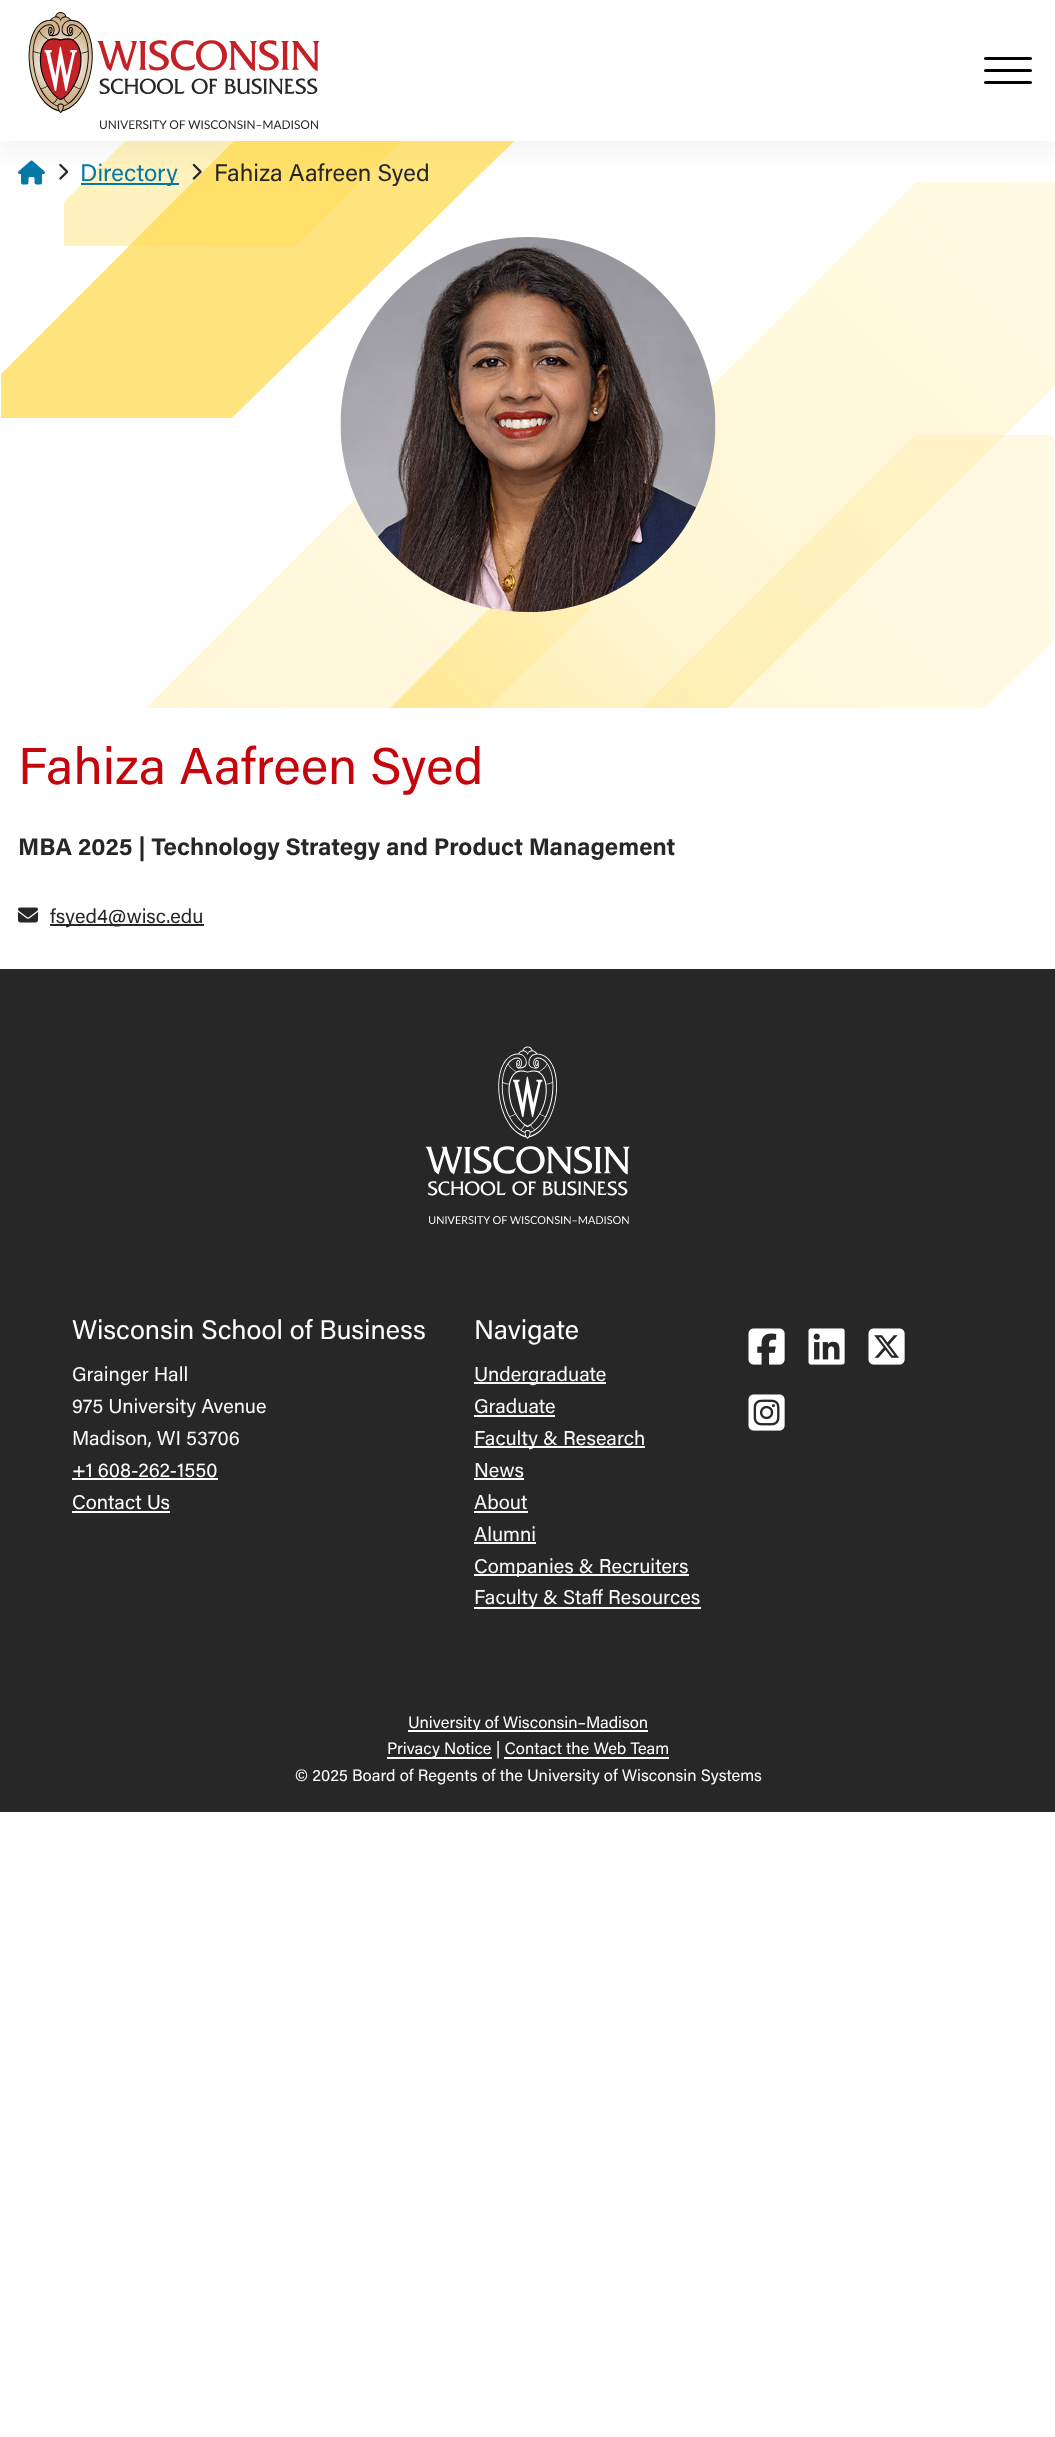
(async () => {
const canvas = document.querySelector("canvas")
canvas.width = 1055
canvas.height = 2437
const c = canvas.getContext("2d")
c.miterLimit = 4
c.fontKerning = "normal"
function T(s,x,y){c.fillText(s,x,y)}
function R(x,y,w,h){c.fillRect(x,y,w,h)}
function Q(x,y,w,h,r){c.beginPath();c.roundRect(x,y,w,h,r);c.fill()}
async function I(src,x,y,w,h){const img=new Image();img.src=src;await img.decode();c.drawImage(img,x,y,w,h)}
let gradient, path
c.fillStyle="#fff"
R(0,0,1055,2437)
c.save()
c.beginPath()
c.rect(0,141,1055,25)
c.clip()
c.fillStyle="#adadad26"
c.filter="blur(12px)"
c.beginPath()
c.rect(0,12,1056,141)
c.fill()
c.filter="none"
c.restore()
await I("1.png",28,12,292,117)
c.fillStyle="#000"
Q(984,57,48,3,1.5)
Q(984,69,48,3,1.5)
Q(984,81,48,3,1.5)
c.save()
c.beginPath()
c.rect(0,141,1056,567)
c.clip()
gradient = c.createLinearGradient(885,-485,175,240)
gradient.addColorStop(0,"#ffd94680")
gradient.addColorStop(1,"#ffd94659")
c.fillStyle = gradient
path = new Path2D("M845-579l-781 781v44h231l594-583v-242z")
c.fill(path)
c.fillStyle="#ffd946b3"
path = new Path2D("M782-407l-781 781v44h231l594-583v-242z")
c.fill(path)
gradient = c.createLinearGradient(589,433,-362,1391)
gradient.addColorStop(.08,"#fff9e3")
gradient.addColorStop(.4,"#fff6d4")
gradient.addColorStop(.69,"#ffe994")
gradient.addColorStop(.9,"#ffde5e")
gradient.addColorStop(1,"#ffd946")
c.fillStyle = gradient
path = new Path2D("M451 403l-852 852v139h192l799-786v-205z")
c.fill(path)
gradient = c.createLinearGradient(1054,212,104,1170)
gradient.addColorStop(0,"#ffd94626")
gradient.addColorStop(.42,"#ffd9463d")
gradient.addColorStop(1,"#ffd946")
c.fillStyle = gradient
path = new Path2D("M916 182l-852 852v139h192l799-787v-204z")
c.fill(path)
gradient = c.createLinearGradient(1053,465,103,1423)
gradient.addColorStop(.07,"#ffd94626")
gradient.addColorStop(.35,"#ffd94633")
gradient.addColorStop(.67,"#ffd9468c")
gradient.addColorStop(.89,"#ffd946db")
gradient.addColorStop(1,"#ffd946")
c.fillStyle = gradient
path = new Path2D("M915 435l-852 852v139h192l799-786v-205z")
c.fill(path)
c.restore()
await I("2.png",340,237,376,375)
await I("3.png",18,160,27,25)
await I("4.png",59,163,10,17)
c.fillStyle="#0479a8"
R(81,183,98,2)
c.font="24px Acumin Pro"
T("Directory",80,181)
await I("5.png",192,163,10,17)
c.fillStyle="#282728"
T("Fahiza Aafreen Syed",214,181)
c.font="51.75px Acumin Pro"
c.fillStyle="#c5050c"
T("Fahiza Aafreen Syed",18,784)
c.font="bold 24px Acumin Pro"
c.fillStyle="#282728"
T("MBA 2025 | Technology Strategy and Product Management",18,855)
await I("6.png",18,907,20,16)
R(50,924,154,2)
c.font="20px Acumin Pro"
T("fsyed4@wisc.edu",50,923)
R(0,969,1055,843)
await I("7.png",425,1046,205,178)
c.font="27px Acumin Pro"
c.fillStyle="#fff"
T("Wisconsin School of Business",72,1339)
c.font="20px Acumin Pro"
c.fillStyle="#f9f9f9"
T("Grainger Hall",72,1381)
T("975 University Avenue",72,1413)
T("Madison, WI 53706",72,1445)
c.fillStyle="#fff"
T("+1 608-262-1550",72,1477)
R(72,1478,146,2)
T("Contact Us",72,1509)
R(72,1511,98,2)
c.font="27px Acumin Pro"
T("Navigate",474,1339)
c.fillStyle="#f9f9f9"
R(474,1382,132,2)
c.font="20px Acumin Pro"
T("Undergraduate",474,1381)
T("Graduate",474,1413)
R(474,1415,81,2)
R(474,1446,171,2)
T("Faculty & Research",474,1445)
T("News",474,1477)
R(474,1478,50,2)
T("About",474,1509)
R(474,1511,54,2)
T("Alumni",474,1541)
R(474,1542,62,2)
R(474,1574,215,2)
T("Companies & Recruiters",474,1573)
R(474,1607,227,2)
T("Faculty & Staff Resources",474,1604)
await I("8.png",748,1328,37,37)
await I("9.png",808,1328,37,37)
await I("10.png",868,1328,37,37)
await I("11.png",748,1394,37,37)
c.fillStyle="#fff"
R(408,1730,240,2)
c.font="16.5px Acumin Pro"
T("University of Wisconsin–Madison",408,1728)
R(387,1757,105,2)
T("Privacy Notice | Contact the Web Team",387,1754)
R(504,1757,165,2)
T("© 2025 Board of Regents of the University of Wisconsin Systems",295,1781)
})()
